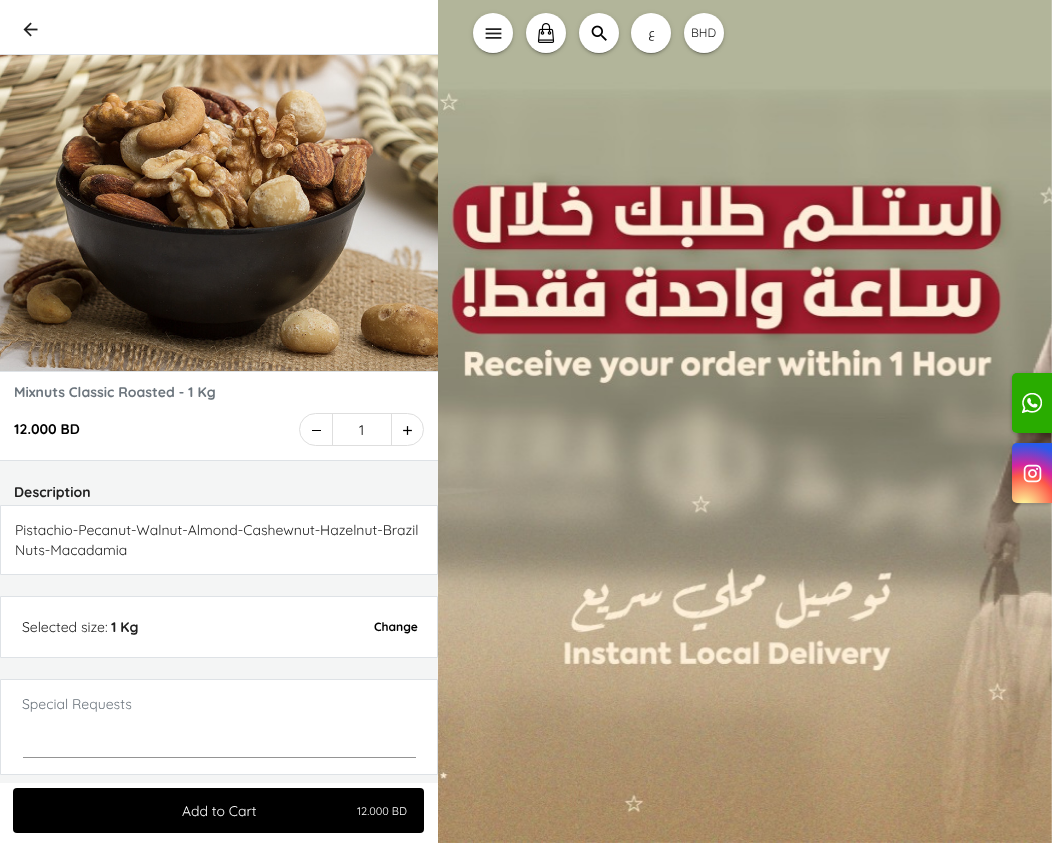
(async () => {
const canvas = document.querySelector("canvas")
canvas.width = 1052
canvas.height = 843
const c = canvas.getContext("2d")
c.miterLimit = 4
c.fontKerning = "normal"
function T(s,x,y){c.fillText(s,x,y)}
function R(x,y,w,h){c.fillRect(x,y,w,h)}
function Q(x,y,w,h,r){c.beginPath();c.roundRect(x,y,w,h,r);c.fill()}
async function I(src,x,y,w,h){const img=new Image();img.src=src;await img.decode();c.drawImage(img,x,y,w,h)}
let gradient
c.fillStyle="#f4f5f5"
R(0,0,1052,843)
await I("1.png",438,0,614,843)
c.fillStyle="#0000001f"
c.filter="blur(2.5px)"
c.beginPath()
c.roundRect(473,14,40,40,20)
c.fill()
c.filter="none"
c.fillStyle="#00000024"
c.filter="blur(1px)"
c.beginPath()
c.roundRect(473,15,40,40,20)
c.fill()
c.filter="none"
c.fillStyle="#00000033"
c.filter="blur(0.5px)"
c.beginPath()
c.roundRect(475,18,36,36,18)
c.fill()
c.filter="none"
c.fillStyle="#fff"
c.beginPath()
c.arc(493,33,20,0,7)
c.fill()
await I("2.png",485,28,17,11)
c.fillStyle="#0000001f"
c.filter="blur(2.5px)"
c.beginPath()
c.roundRect(526,14,40,40,20)
c.fill()
c.filter="none"
c.fillStyle="#00000024"
c.filter="blur(1px)"
c.beginPath()
c.roundRect(526,15,40,40,20)
c.fill()
c.filter="none"
c.fillStyle="#00000033"
c.filter="blur(0.5px)"
c.beginPath()
c.roundRect(528,18,36,36,18)
c.fill()
c.filter="none"
c.fillStyle="#fff"
c.beginPath()
c.arc(546,33,20,0,7)
c.fill()
await I("3.png",537,23,18,20)
c.fillStyle="#0000001f"
c.filter="blur(2.5px)"
c.beginPath()
c.roundRect(579,14,40,40,20)
c.fill()
c.filter="none"
c.fillStyle="#00000024"
c.filter="blur(1px)"
c.beginPath()
c.roundRect(579,15,40,40,20)
c.fill()
c.filter="none"
c.fillStyle="#00000033"
c.filter="blur(0.5px)"
c.beginPath()
c.roundRect(581,18,36,36,18)
c.fill()
c.filter="none"
c.fillStyle="#fff"
c.beginPath()
c.arc(599,33,20,0,7)
c.fill()
await I("4.png",591,25,16,16)
c.fillStyle="#0000001f"
c.filter="blur(2.5px)"
c.beginPath()
c.roundRect(631,14,40,40,20)
c.fill()
c.filter="none"
c.fillStyle="#00000024"
c.filter="blur(1px)"
c.beginPath()
c.roundRect(631,15,40,40,20)
c.fill()
c.filter="none"
c.fillStyle="#00000033"
c.filter="blur(0.5px)"
c.beginPath()
c.roundRect(633,18,36,36,18)
c.fill()
c.filter="none"
c.fillStyle="#fff"
c.beginPath()
c.arc(651,33,20,0,7)
c.fill()
c.direction="rtl"
c.font="12px Cairo"
c.fillStyle="#202020"
T("ع",655,37)
c.fillStyle="#0000001f"
c.filter="blur(2.5px)"
c.beginPath()
c.roundRect(684,14,40,40,20)
c.fill()
c.filter="none"
c.fillStyle="#00000024"
c.filter="blur(1px)"
c.beginPath()
c.roundRect(684,15,40,40,20)
c.fill()
c.filter="none"
c.fillStyle="#00000033"
c.filter="blur(0.5px)"
c.beginPath()
c.roundRect(686,18,36,36,18)
c.fill()
c.filter="none"
c.fillStyle="#fff"
c.beginPath()
c.arc(704,33,20,0,7)
c.fill()
c.direction="ltr"
c.font="300 12px Quicksand"
c.fillStyle="#202020"
T("BHD",691,37)
c.fillStyle="#fff"
R(0,0,438,54)
c.fillStyle="#dee2e6"
R(0,54,438,1)
await I("5.png",23,22,15,15)
await I("6.png",0,55,438,316)
c.fillStyle="#fff"
R(0,372,438,88)
c.fillStyle="#dee2e6"
R(0,371,438,1)
R(0,460,438,1)
c.font="300 14px 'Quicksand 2'"
c.fillStyle="#6c757d"
T("Mixnuts Classic Roasted - 1 Kg",14,397)
c.fillStyle="#000"
T("12.000 BD",14,434)
c.beginPath()
c.roundRect(299.5,413.5,124,32,16)
c.strokeStyle="#dedede"
c.stroke()
R(312,430,9,1)
c.fillStyle="#dedede"
R(391,414,1,32)
R(332,414,1,32)
c.font="300 14px Quicksand"
c.fillStyle="#000"
T("1",359,435)
await I("7.png",403,426,9,9)
c.font="300 14px 'Quicksand 2'"
c.fillStyle="#202020"
T("Description",14,497)
c.fillStyle="#fff"
c.beginPath()
c.rect(.5,505.5,437,69)
c.fill()
c.strokeStyle="#dee2e6"
c.stroke()
c.font="300 14px Quicksand"
c.fillStyle="#202020"
T("Pistachio-Pecanut-Walnut-Almond-Cashewnut-Hazelnut-Brazil",15,535)
T("Nuts-Macadamia",15,555)
c.fillStyle="#fff"
c.beginPath()
c.rect(.5,596.5,437,61)
c.fill()
c.stroke()
c.fillStyle="#202020"
T("Selected size:",22,632)
c.font="300 14px 'Quicksand 2'"
T("1 Kg",111,632)
c.font="300 12px 'Quicksand 2'"
c.fillStyle="#000"
T("Change",374,631)
c.fillStyle="#fff"
c.beginPath()
c.rect(.5,679.5,437,95)
c.fill()
c.stroke()
c.font="300 14px Quicksand"
c.fillStyle="#6c757d"
T("Special Requests",22,709)
c.fillStyle="#949494"
R(23,757,393,1)
c.fillStyle="#fff"
R(0,783,438,60)
c.fillStyle="#000"
Q(13,788,411,45,4)
c.fillStyle="#fff"
T("Add to Cart",182,816)
c.font="300 11px Quicksand"
T("12.000 BD",357,815)
c.fillStyle="#00000026"
c.filter="blur(1.5px)"
c.beginPath()
c.roundRect(1011,373,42,62,6)
c.fill()
c.filter="none"
c.fillStyle="#29ac00"
c.beginPath()
c.roundRect(1012,373,40,60,[5,0,0,5])
c.fill()
await I("8.png",1012,374,31,58)
c.fillStyle="#00000026"
c.filter="blur(1.5px)"
c.beginPath()
c.roundRect(1011,443,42,62,6)
c.fill()
c.filter="none"
gradient = c.createRadialGradient(1024,507,0,1024,507,70)
gradient.addColorStop(0,"#fdf497")
gradient.addColorStop(.05,"#fdf497")
gradient.addColorStop(.45,"#fd5949")
gradient.addColorStop(.6,"#d6249f")
gradient.addColorStop(.9,"#285aeb")
c.fillStyle = gradient
c.beginPath()
c.roundRect(1012,443,40,60,[5,0,0,5])
c.fill()
await I("9.png",1023,464,19,19)
})()
